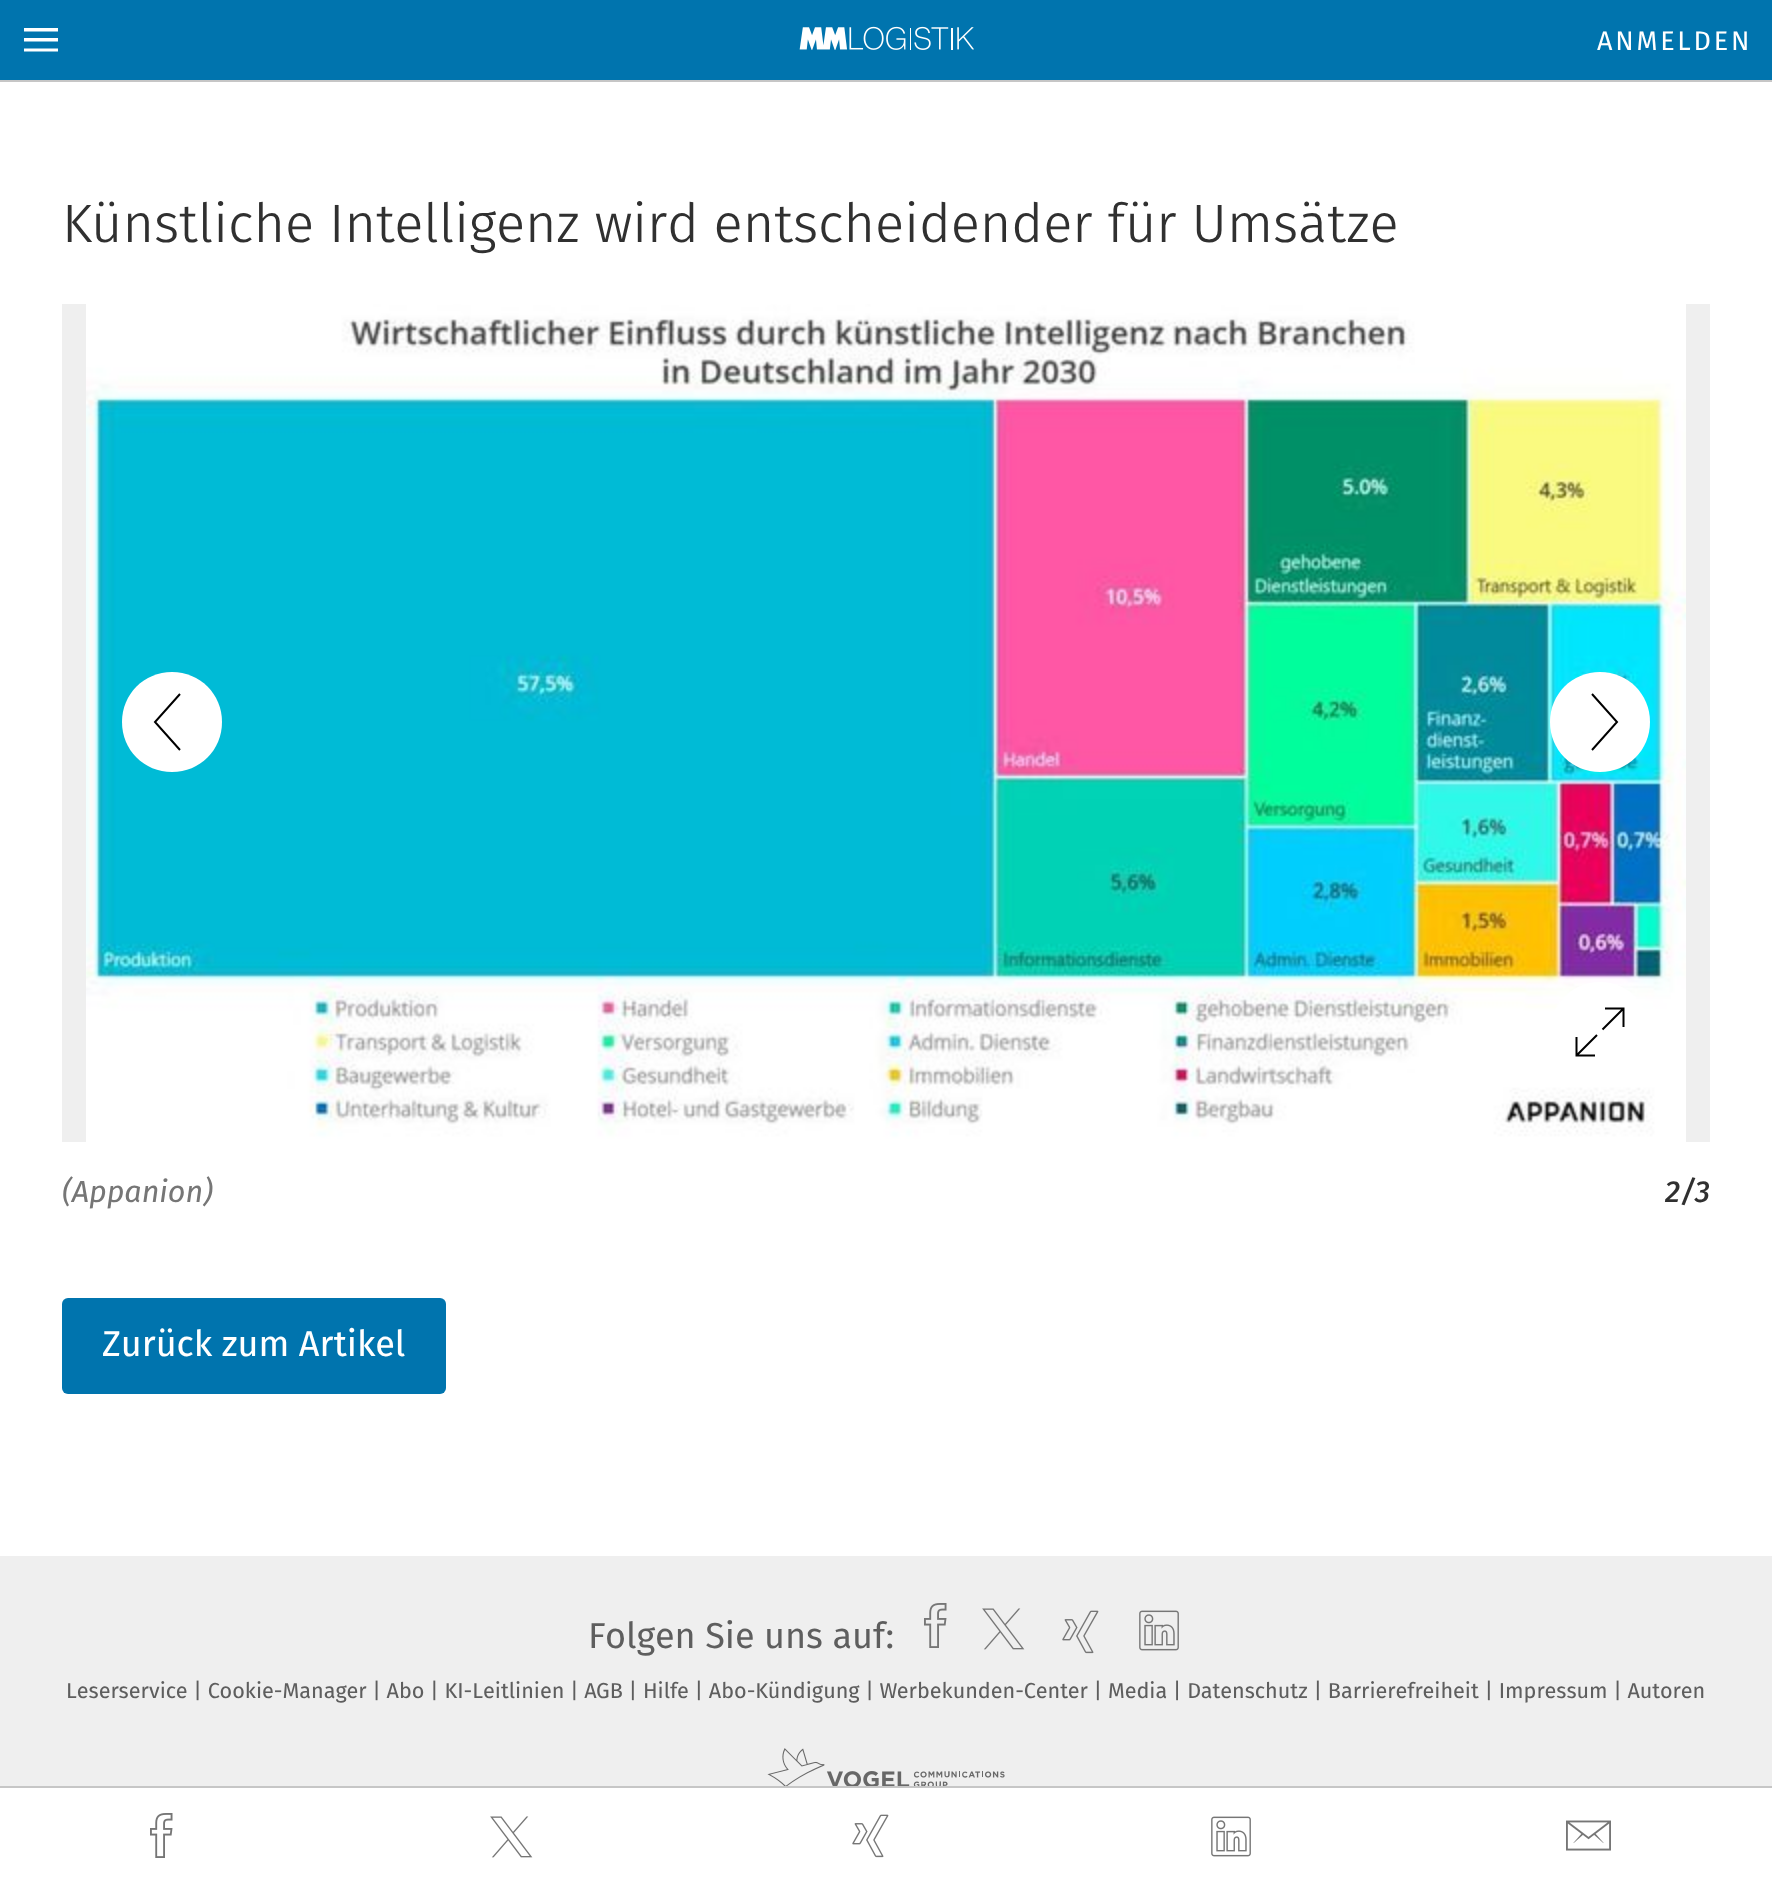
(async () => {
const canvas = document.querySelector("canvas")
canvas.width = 1772
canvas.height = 1886
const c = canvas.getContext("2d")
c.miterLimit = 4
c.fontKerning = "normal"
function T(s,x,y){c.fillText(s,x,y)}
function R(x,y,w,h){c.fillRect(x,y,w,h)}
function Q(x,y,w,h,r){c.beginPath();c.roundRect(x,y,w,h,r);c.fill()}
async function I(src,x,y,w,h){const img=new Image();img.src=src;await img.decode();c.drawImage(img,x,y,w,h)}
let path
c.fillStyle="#fff"
R(0,0,1772,1886)
c.fillStyle="#c6c6c6"
R(0,80,1772,2)
c.fillStyle="#0074ae"
R(0,0,1772,80)
c.fillStyle="#fff"
path = new Path2D("M24 41.5v-3.5h34v3.5zm0-10v-3.5h34v3.5zm0 20v-3h34v3z")
c.fill(path)
await I("1.png",799,26,175,24)
c.letterSpacing="2.75px"
c.font="27px 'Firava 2'"
T("ANMELDEN",1597,50)
c.letterSpacing="0px"
c.font="300 54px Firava"
c.fillStyle="#303030"
T("Künstliche Intelligenz wird entscheidender für Umsätze",62,242)
c.fillStyle="#efefef"
R(62,304,1648,838)
await I("2.png",86,304,1600,838)
c.fillStyle="#fff"
path = new Path2D("M172 772c28 0 50-22 50-50c0-28-22-50-50-50c-28 0-50 22-50 50c0 28 22 50 50 50")
c.fill(path)
path = new Path2D("M180 694l-25 28l25 28")
c.strokeStyle="#000"
c.lineWidth=2
c.stroke(path)
path = new Path2D("M1600 672c-28 0-50 22-50 50c0 28 22 50 50 50c28 0 50-22 50-50c0-28-22-50-50-50")
c.fill(path)
path = new Path2D("M1592 750l25-28l-25-28")
c.stroke(path)
path = new Path2D("M1600 1082c28 0 50-22 50-50c0-28-22-50-50-50c-28 0-50 22-50 50c0 28 22 50 50 50")
c.fill(path)
path = new Path2D("M1623.5 1027v-18.5h-18.5m-28.5 28.5v18.5h18.5m27.5-46l-20 20m-5.5 5.5l-20 20")
c.stroke(path)
c.font="italic 30.5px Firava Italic"
c.fillStyle="#767676"
T("(Appanion)",62,1202)
c.font="italic 500 30.5px Firava Italic"
c.fillStyle="#303030"
T("2/3",1665,1202)
c.fillStyle="#0074ae"
Q(62,1298,384,96,6)
c.font="36px Firava"
c.fillStyle="#fff"
T("Zurück zum Artikel",102,1356)
c.fillStyle="#c6c6c6"
R(0,1786,1772,2)
await I("3.png",150,1813,23,45)
await I("4.png",490,1816,43,42)
await I("5.png",852,1814,37,44)
await I("6.png",1211,1816,40,41)
await I("7.png",1566,1820,45,31)
c.fillStyle="#efefef"
R(0,1556,1772,230)
c.font="36px 'Firava 2'"
c.fillStyle="#5e5e5e"
T("Folgen Sie uns auf:",588,1648)
await I("8.png",924,1603,23,45)
await I("9.png",982,1608,43,42)
await I("10.png",1062,1610,37,44)
await I("11.png",1139,1610,40,41)
c.font="21.6px Firava"
T("Leserservice | Cookie-Manager | Abo | KI-Leitlinien | AGB | Hilfe | Abo-Kündigung | Werbekunden-Center | Media | Datenschutz | Barrierefreiheit | Impressum | Autoren",66,1698)
await I("12.png",767,1748,238,38)
})()
